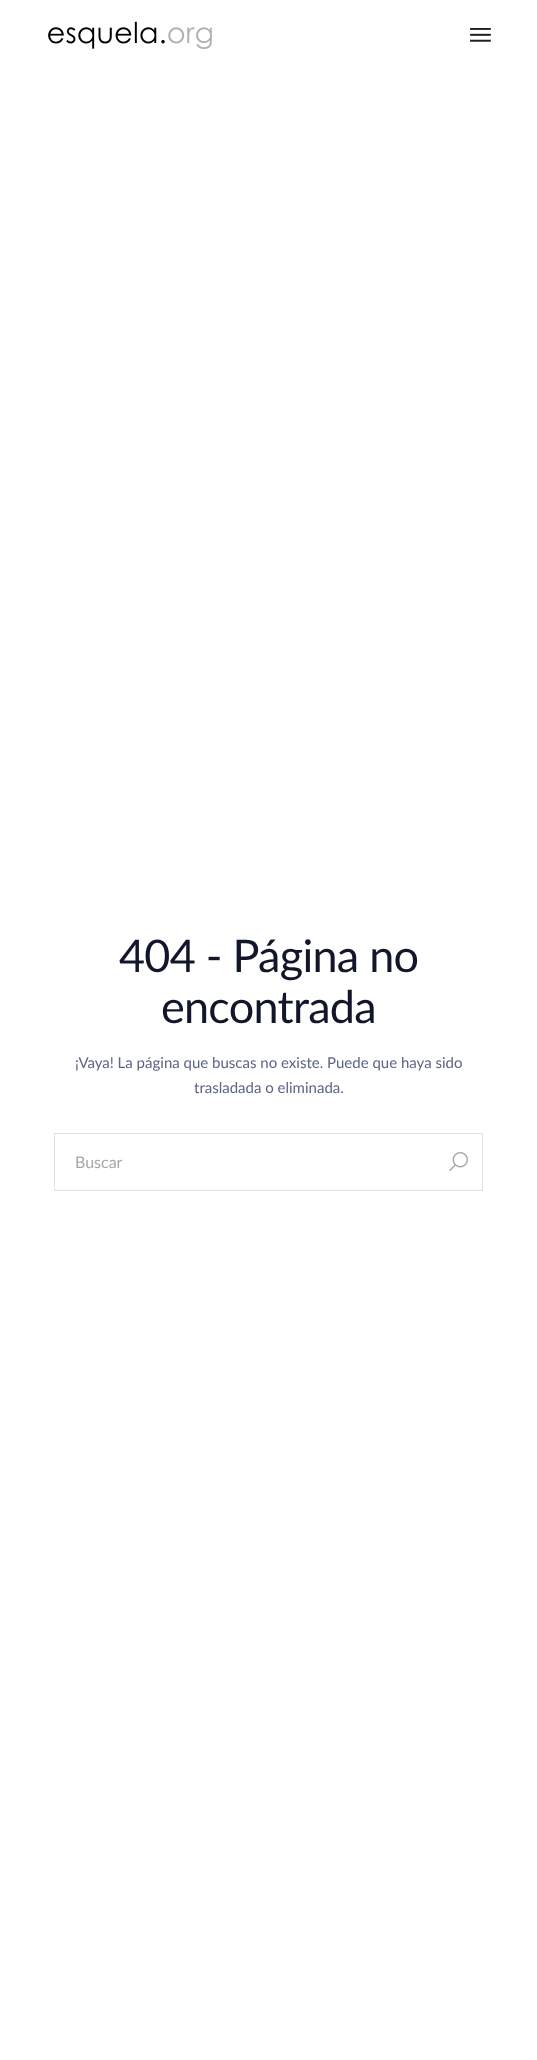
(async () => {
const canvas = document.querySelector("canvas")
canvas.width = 537
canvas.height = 2060
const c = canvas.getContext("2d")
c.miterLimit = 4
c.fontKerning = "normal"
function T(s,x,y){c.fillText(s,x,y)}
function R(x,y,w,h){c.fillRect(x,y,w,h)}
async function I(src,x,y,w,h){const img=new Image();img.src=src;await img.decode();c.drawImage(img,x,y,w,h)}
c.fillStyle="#fff"
R(0,0,537,2060)
await I("1.png",48,21,164,28)
await I("2.png",470,28,21,14)
c.letterSpacing="-0.75px"
c.font="45px Lato"
c.fillStyle="#12162a"
T("404 - Página no",119,972)
T("encontrada",161,1023)
c.letterSpacing="0px"
c.font="15px Lato"
c.fillStyle="#5c6386"
T("¡Vaya! La página que buscas no existe. Puede que haya sido",75,1068)
T("trasladada o eliminada.",194,1093)
c.strokeStyle="#e1e1e1"
c.strokeRect(54.5,1133.5,428,57)
c.font="16px Lato"
c.fillStyle="#a8a7a7"
T("Buscar",75,1168)
await I("3.png",449,1152,19,19)
})()
